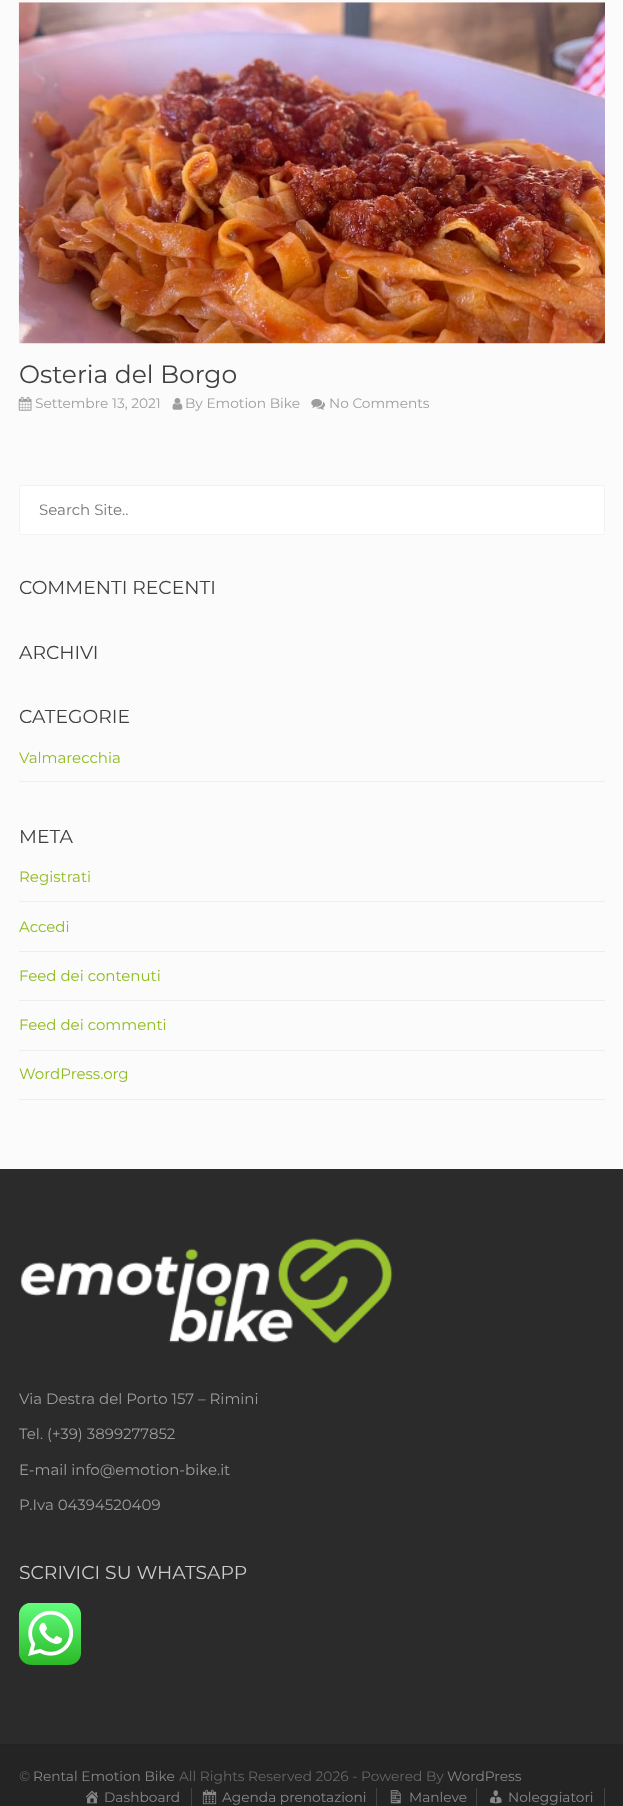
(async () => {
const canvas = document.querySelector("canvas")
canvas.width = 623
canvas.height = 1806
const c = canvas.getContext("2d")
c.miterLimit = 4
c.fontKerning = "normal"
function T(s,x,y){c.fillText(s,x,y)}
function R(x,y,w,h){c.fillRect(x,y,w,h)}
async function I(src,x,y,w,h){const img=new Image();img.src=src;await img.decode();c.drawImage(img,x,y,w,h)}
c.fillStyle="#fbfbfb"
R(0,0,623,1806)
await I("1.png",18,2,587,342)
c.font="100 25px Montserrat"
c.fillStyle="#404040"
T("Osteria del Borgo",19,383)
await I("2.png",18,397,14,14)
c.font="100 13.75px Montserrat"
c.fillStyle="#9d9d9d"
T("Settembre 13, 2021",35,408)
await I("3.png",172,398,11,12)
T("By Emotion Bike",185,408)
await I("4.png",311,398,14,12)
T("No Comments",329,408)
c.fillStyle="#fff"
c.beginPath()
c.roundRect(19.5,485.5,585,49,2)
c.fill()
c.strokeStyle="#f2f2f2"
c.stroke()
c.font="100 15px Montserrat"
c.fillStyle="#757575"
T("Search Site..",39,515)
c.font="100 18.75px Montserrat"
c.fillStyle="#404040"
T("COMMENTI RECENTI",19,594)
T("ARCHIVI",19,659)
T("CATEGORIE",19,723)
c.fillStyle="#eee"
R(19,781,586,1)
c.font="100 15px Montserrat"
c.fillStyle="#8fbc1f"
T("Valmarecchia",19,763)
c.font="100 18.75px Montserrat"
c.fillStyle="#404040"
T("META",19,843)
c.fillStyle="#eee"
R(19,901,586,1)
c.font="100 15px Montserrat"
c.fillStyle="#8fbc1f"
T("Registrati",19,882)
c.fillStyle="#eee"
R(19,951,586,1)
c.fillStyle="#8fbc1f"
T("Accedi",19,932)
c.fillStyle="#eee"
R(19,1000,586,1)
c.fillStyle="#8fbc1f"
T("Feed dei contenuti",19,981)
c.fillStyle="#eee"
R(19,1050,586,1)
c.fillStyle="#8fbc1f"
T("Feed dei commenti",19,1030)
c.fillStyle="#eee"
R(19,1099,586,1)
c.fillStyle="#8fbc1f"
T("WordPress.org",19,1079)
c.fillStyle="#2b2b2b"
R(0,1169,623,575)
await I("5.png",20,1238,373,106)
c.fillStyle="#9d9d9d"
T("Via Destra del Porto 157 – Rimini",19,1404)
T("Tel. (+39) 3899277852",19,1439)
T("E-mail info@emotion-bike.it",19,1475)
T("P.Iva 04394520409",19,1510)
c.font="100 18.75px Montserrat"
c.fillStyle="#ccc"
T("SCRIVICI SU WHATSAPP",19,1579)
await I("6.png",19,1603,62,62)
c.fillStyle="#242424"
R(0,1745,623,61)
c.fillStyle="#222"
R(0,1744,623,1)
c.font="100 13.75px Montserrat"
c.fillStyle="#666"
T("©",19,1781)
c.fillStyle="#888"
T("Rental Emotion Bike",33,1781)
c.fillStyle="#666"
T("All Rights Reserved 2026 - Powered By",179,1781)
c.fillStyle="#888"
T("WordPress",447,1781)
c.fillStyle="#444"
R(191,1788,1,18)
await I("7.png",85,1790,14,14)
c.fillStyle="#888"
T("Dashboard",104,1802)
c.fillStyle="#444"
R(376,1788,1,18)
await I("8.png",202,1789,15,16)
c.fillStyle="#888"
T("Agenda prenotazioni",222,1802)
c.fillStyle="#444"
R(476,1788,1,18)
await I("9.png",390,1790,11,14)
c.fillStyle="#888"
T("Manleve",409,1802)
c.fillStyle="#444"
R(604,1788,1,18)
await I("10.png",490,1790,12,14)
c.fillStyle="#888"
T("Noleggiatori",508,1802)
})()
